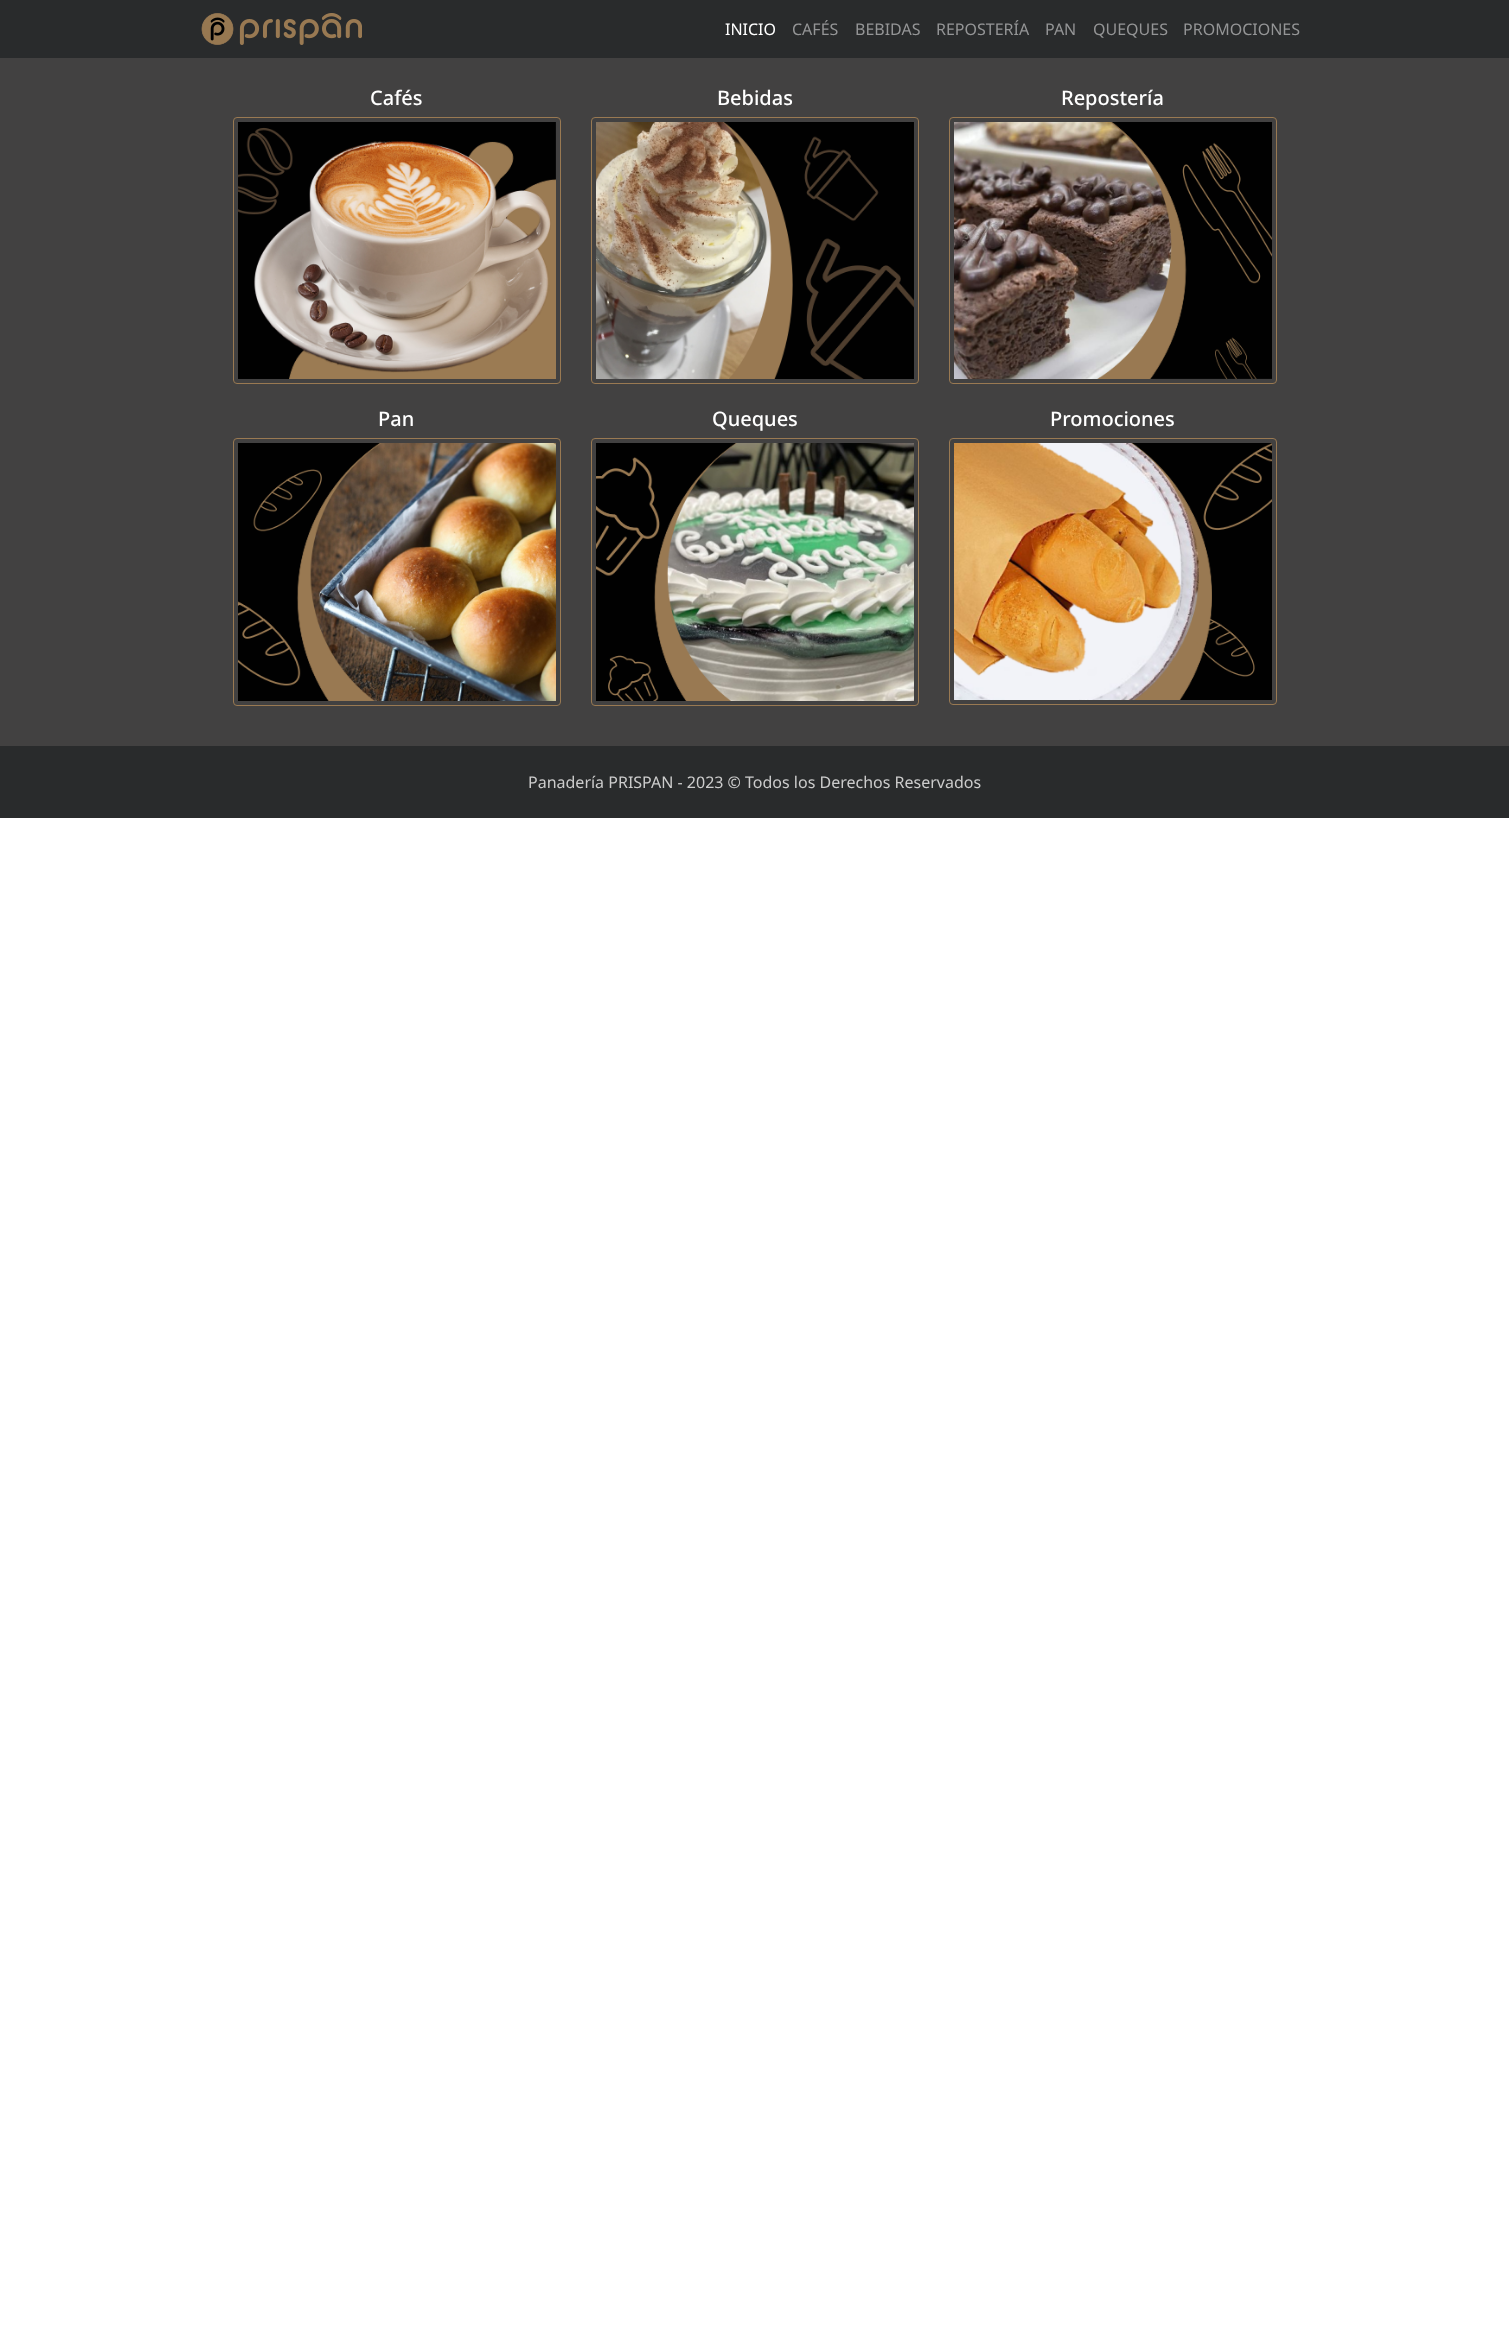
(async () => {
const canvas = document.querySelector("canvas")
canvas.width = 1509
canvas.height = 2344
const c = canvas.getContext("2d")
c.miterLimit = 4
c.fontKerning = "normal"
function T(s,x,y){c.fillText(s,x,y)}
function R(x,y,w,h){c.fillRect(x,y,w,h)}
async function I(src,x,y,w,h){const img=new Image();img.src=src;await img.decode();c.drawImage(img,x,y,w,h)}
c.fillStyle="#fff"
R(0,0,1509,2344)
c.fillStyle="#292b2c"
R(0,0,1509,58)
await I("1.png",201,13,161,32)
c.font="16px Noto Sans"
c.fillStyle="#fff"
T("INICIO",725,35)
c.fillStyle="#949596"
T("CAFÉS",792,35)
T("BEBIDAS",855,35)
T("REPOSTERÍA",936,35)
T("PAN",1045,35)
T("QUEQUES",1093,35)
T("PROMOCIONES",1183,35)
c.fillStyle="#424141"
R(0,58,1509,688)
c.font="500 20px Noto Sans"
c.fillStyle="#fff"
T("Cafés",370,105)
c.beginPath()
c.roundRect(233.5,117.5,327,266,3.5)
c.strokeStyle="#997952"
c.stroke()
await I("2.png",238,122,318,257)
T("Bebidas",717,105)
c.beginPath()
c.roundRect(591.5,117.5,327,266,3.5)
c.stroke()
await I("3.png",596,122,318,257)
T("Repostería",1061,105)
c.beginPath()
c.roundRect(949.5,117.5,327,266,3.5)
c.stroke()
await I("4.png",954,122,318,257)
T("Pan",378,426)
c.beginPath()
c.roundRect(233.5,438.5,327,267,3.5)
c.stroke()
await I("5.png",238,443,318,258)
T("Queques",712,426)
c.beginPath()
c.roundRect(591.5,438.5,327,267,3.5)
c.stroke()
await I("6.png",596,443,318,258)
T("Promociones",1050,426)
c.beginPath()
c.roundRect(949.5,438.5,327,266,3.5)
c.stroke()
await I("7.png",954,443,318,257)
c.fillStyle="#292b2c"
R(0,746,1509,72)
c.font="16px Noto Sans"
c.fillStyle="#ccc"
T("Panadería PRISPAN - 2023 © Todos los Derechos Reservados",528,788)
})()
